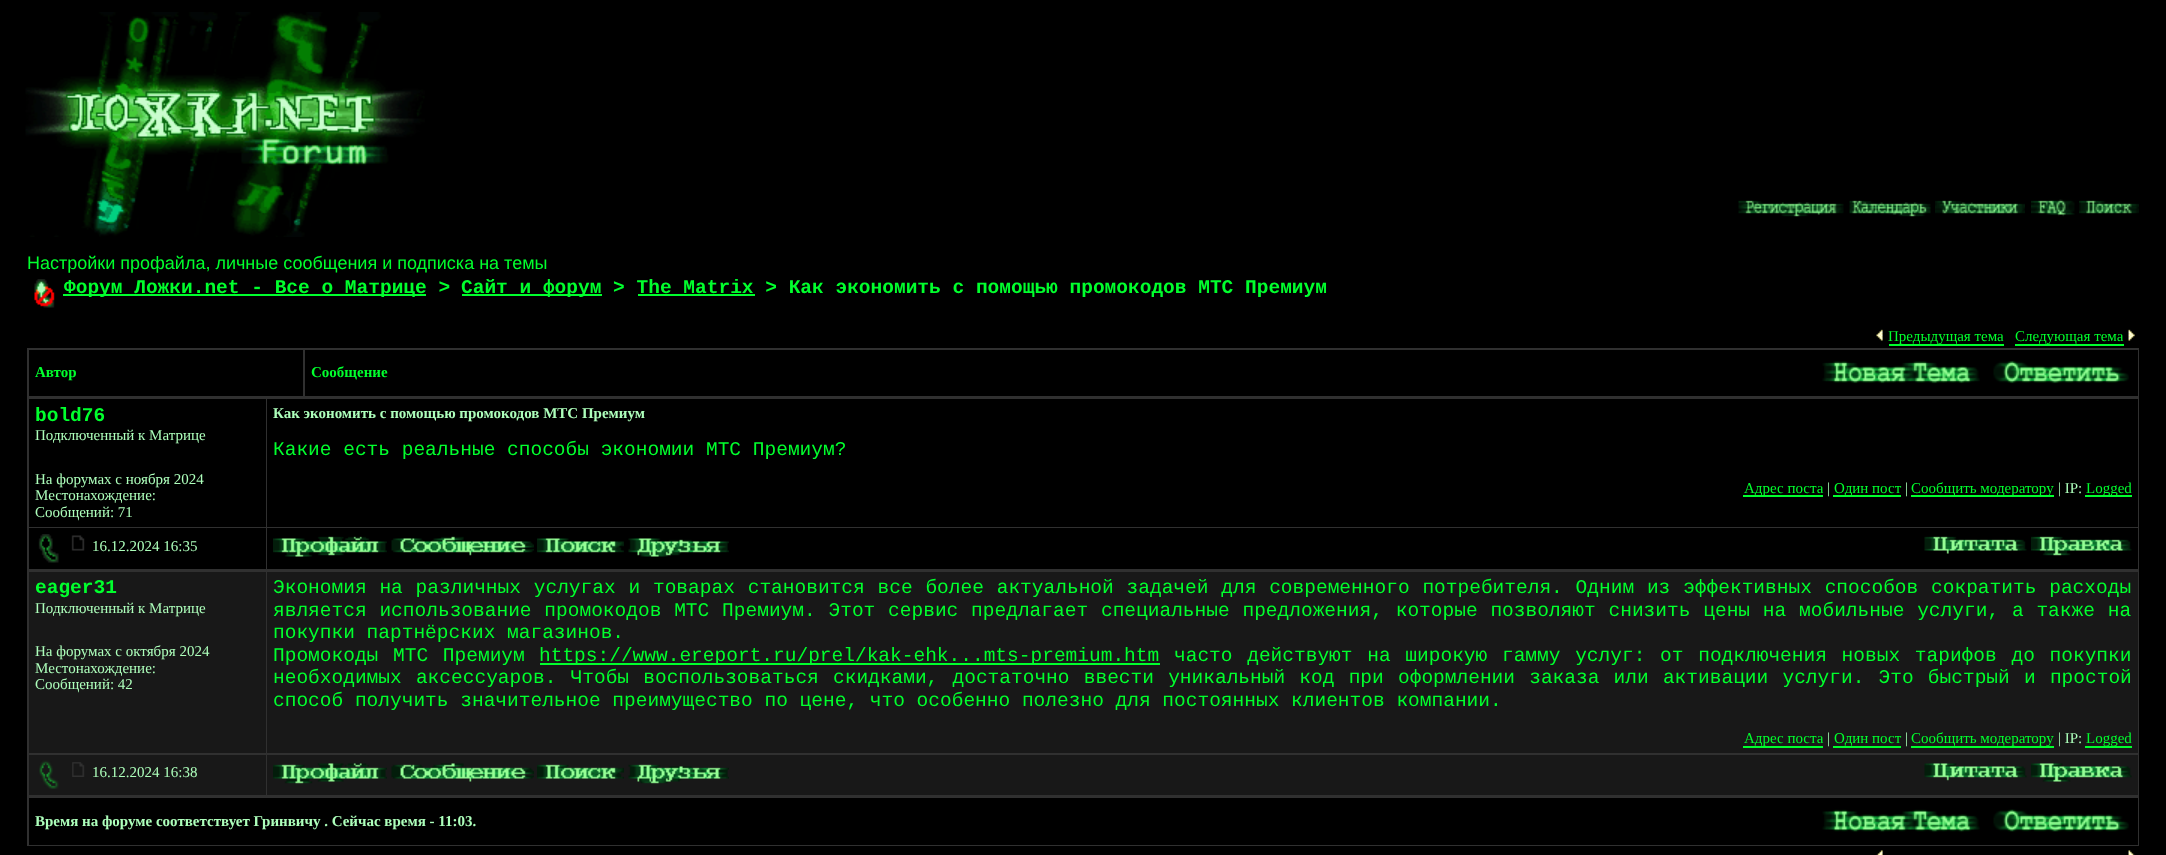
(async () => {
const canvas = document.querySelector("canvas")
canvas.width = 2166
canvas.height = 855
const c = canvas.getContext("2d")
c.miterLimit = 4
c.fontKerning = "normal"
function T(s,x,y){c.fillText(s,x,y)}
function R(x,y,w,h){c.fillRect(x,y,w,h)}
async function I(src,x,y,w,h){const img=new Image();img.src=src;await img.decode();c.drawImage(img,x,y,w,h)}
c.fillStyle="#000"
R(0,0,2166,855)
await I("1.png",25,12,400,225)
await I("2.png",1738,200,106,17)
await I("3.png",1849,200,82,17)
await I("4.png",1935,200,90,14)
await I("5.png",2031,199,44,18)
await I("6.png",2079,200,60,14)
c.font="18px Liberation Sans"
c.fillStyle="#00ff2d"
T("Настройки профайла, личные сообщения и подписка на темы",27,269)
await I("7.png",34,279,21,29)
R(63,294,363,2)
c.font="bold 19.5px Liberation Mono"
T("Форум Ложки.net - Все о Матрице >",64,293)
R(462,294,140,2)
T("Сайт и форум > The Matrix > Как экономить с помощью промокодов МТС Премиум",461,293)
R(638,294,117,2)
await I("8.png",1876,329,7,12)
R(1889,344,115,2)
c.font="15px Liberation Serif"
T("Предыдущая тема",1888,341)
R(2015,344,109,2)
T("Следующая тема",2015,341)
await I("9.png",2128,329,7,12)
c.fillStyle="#303030"
R(27,348,2112,498)
c.fillStyle="#000"
R(29,350,274,46)
c.font="bold 15px Liberation Serif"
c.fillStyle="#00ff2d"
T("Автор",35,377)
c.fillStyle="#000"
R(305,350,1833,46)
c.fillStyle="#00ff2d"
T("Сообщение",311,377)
await I("10.png",1822,361,158,23)
await I("11.png",1993,360,136,24)
c.fillStyle="#000"
R(29,399,237,128)
c.font="bold 19.5px Liberation Mono"
c.fillStyle="#00ff2d"
T("bold76",35,421)
c.font="15px Liberation Serif"
c.fillStyle="#adffbb"
T("Подключенный к Матрице",35,440)
T("На форумах с ноября 2024",35,484)
T("Местонахождение:",35,500)
T("Сообщений: 71",35,517)
c.fillStyle="#000"
R(267,399,1871,128)
c.font="bold 15px Liberation Serif"
c.fillStyle="#adffbb"
T("Как экономить с помощью промокодов МТС Премиум",273,418)
c.font="19.5px Liberation Mono"
c.fillStyle="#00ff2d"
T("Какие есть реальные способы экономии МТС Премиум?",273,455)
R(1743,495,80,2)
c.font="15px Liberation Serif"
T("Адрес поста",1744,493)
c.fillStyle="#adffbb"
T("|",1827,493)
c.fillStyle="#00ff2d"
R(1833,495,68,2)
T("Один пост",1834,493)
c.fillStyle="#adffbb"
T("|",1905,493)
c.fillStyle="#00ff2d"
R(1911,495,143,2)
T("Сообщить модератору",1911,493)
c.fillStyle="#adffbb"
T("| IP:",2058,493)
c.fillStyle="#00ff2d"
R(2085,495,47,2)
T("Logged",2086,493)
c.fillStyle="#000"
R(29,528,237,41)
await I("12.png",38,534,21,29)
await I("13.png",71,535,14,16)
c.fillStyle="#adffbb"
T("16.12.2024 16:35",92,551)
c.fillStyle="#000"
R(267,528,1871,41)
await I("14.png",273,536,114,21)
await I("15.png",391,536,143,20)
await I("16.png",537,538,87,15)
await I("17.png",628,538,101,19)
await I("18.png",1924,536,103,18)
await I("19.png",2031,536,101,20)
c.fillStyle="#181818"
R(29,572,237,181)
c.font="bold 19.5px Liberation Mono"
c.fillStyle="#00ff2d"
T("eager31",35,593)
c.font="15px Liberation Serif"
c.fillStyle="#adffbb"
T("Подключенный к Матрице",35,613)
T("На форумах с октября 2024",35,656)
T("Местонахождение:",35,673)
T("Сообщений: 42",35,689)
c.fillStyle="#181818"
R(267,572,1871,181)
c.wordSpacing="1.1px"
c.font="19.5px Liberation Mono"
c.fillStyle="#00ff2d"
T("Экономия на различных услугах и товарах становится все более актуальной задачей для современного потребителя. Одним из эффективных способов сократить расходы",273,593)
T("является использование промокодов МТС Премиум. Этот сервис предлагает специальные предложения, которые позволяют снизить цены на мобильные услуги, а также на",273,616)
c.wordSpacing="0px"
T("покупки партнёрских магазинов.",273,638)
c.wordSpacing="3px"
T("Промокоды МТС Премиум",273,661)
R(540,663,620,2)
c.wordSpacing="0px"
T("https://www.ereport.ru/prel/kak-ehk...mts-premium.htm",539,661)
c.wordSpacing="3px"
T("часто действуют на широкую гамму услуг: от подключения новых тарифов до покупки",1174,661)
c.wordSpacing="2.5px"
T("необходимых аксессуаров. Чтобы воспользоваться скидками, достаточно ввести уникальный код при оформлении заказа или активации услуги. Это быстрый и простой",273,683)
c.wordSpacing="0px"
T("способ получить значительное преимущество по цене, что особенно полезно для постоянных клиентов компании.",273,706)
R(1743,746,80,2)
c.font="15px Liberation Serif"
T("Адрес поста",1744,743)
c.fillStyle="#adffbb"
T("|",1827,743)
c.fillStyle="#00ff2d"
T("Один пост",1834,743)
R(1833,746,68,2)
c.fillStyle="#adffbb"
T("|",1905,743)
c.fillStyle="#00ff2d"
R(1911,746,143,2)
T("Сообщить модератору",1911,743)
c.fillStyle="#adffbb"
T("| IP:",2058,743)
c.fillStyle="#00ff2d"
R(2085,746,47,2)
T("Logged",2086,743)
c.fillStyle="#181818"
R(29,755,237,40)
await I("20.png",39,760,20,29)
await I("21.png",72,762,13,15)
c.fillStyle="#adffbb"
T("16.12.2024 16:38",92,777)
c.fillStyle="#181818"
R(267,755,1871,40)
await I("22.png",273,763,114,21)
await I("23.png",391,763,143,19)
await I("24.png",537,764,87,15)
await I("25.png",628,764,101,20)
await I("26.png",1924,763,103,18)
await I("27.png",2031,763,101,19)
c.fillStyle="#000"
R(29,798,2109,47)
c.font="bold 15px Liberation Serif"
c.fillStyle="#adffbb"
T("Время на форуме соответствует Гринвичу . Сейчас время - 11:03.",35,826)
await I("28.png",1822,809,158,24)
await I("29.png",1993,809,136,23)
await I("30.png",1876,850,7,5)
await I("31.png",2128,850,7,5)
})()
